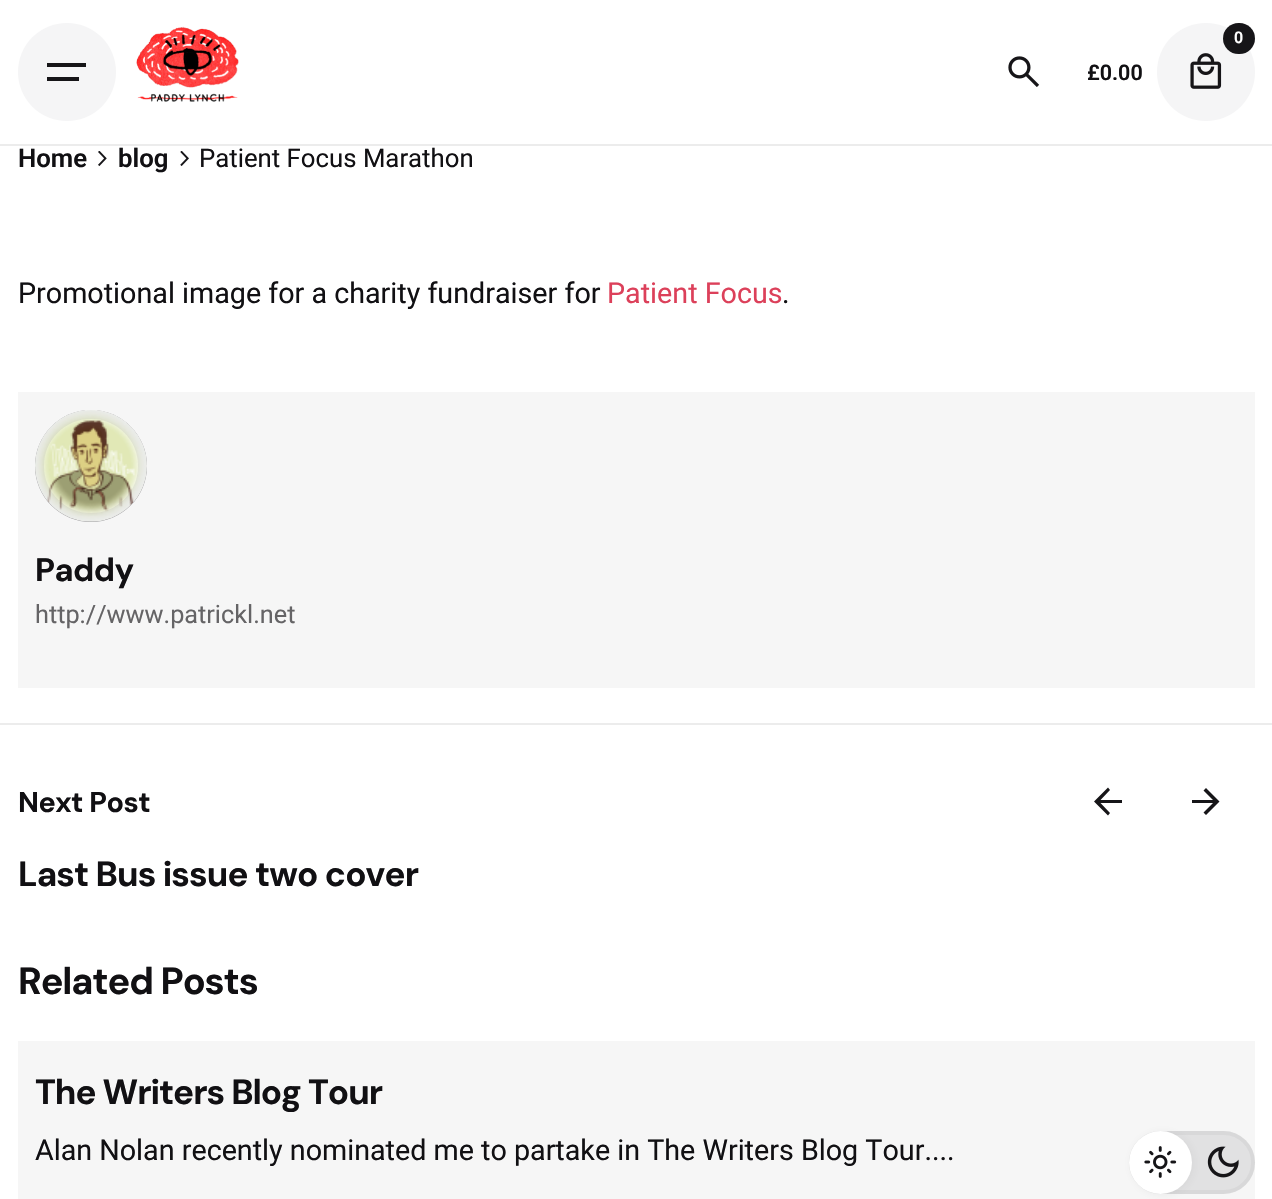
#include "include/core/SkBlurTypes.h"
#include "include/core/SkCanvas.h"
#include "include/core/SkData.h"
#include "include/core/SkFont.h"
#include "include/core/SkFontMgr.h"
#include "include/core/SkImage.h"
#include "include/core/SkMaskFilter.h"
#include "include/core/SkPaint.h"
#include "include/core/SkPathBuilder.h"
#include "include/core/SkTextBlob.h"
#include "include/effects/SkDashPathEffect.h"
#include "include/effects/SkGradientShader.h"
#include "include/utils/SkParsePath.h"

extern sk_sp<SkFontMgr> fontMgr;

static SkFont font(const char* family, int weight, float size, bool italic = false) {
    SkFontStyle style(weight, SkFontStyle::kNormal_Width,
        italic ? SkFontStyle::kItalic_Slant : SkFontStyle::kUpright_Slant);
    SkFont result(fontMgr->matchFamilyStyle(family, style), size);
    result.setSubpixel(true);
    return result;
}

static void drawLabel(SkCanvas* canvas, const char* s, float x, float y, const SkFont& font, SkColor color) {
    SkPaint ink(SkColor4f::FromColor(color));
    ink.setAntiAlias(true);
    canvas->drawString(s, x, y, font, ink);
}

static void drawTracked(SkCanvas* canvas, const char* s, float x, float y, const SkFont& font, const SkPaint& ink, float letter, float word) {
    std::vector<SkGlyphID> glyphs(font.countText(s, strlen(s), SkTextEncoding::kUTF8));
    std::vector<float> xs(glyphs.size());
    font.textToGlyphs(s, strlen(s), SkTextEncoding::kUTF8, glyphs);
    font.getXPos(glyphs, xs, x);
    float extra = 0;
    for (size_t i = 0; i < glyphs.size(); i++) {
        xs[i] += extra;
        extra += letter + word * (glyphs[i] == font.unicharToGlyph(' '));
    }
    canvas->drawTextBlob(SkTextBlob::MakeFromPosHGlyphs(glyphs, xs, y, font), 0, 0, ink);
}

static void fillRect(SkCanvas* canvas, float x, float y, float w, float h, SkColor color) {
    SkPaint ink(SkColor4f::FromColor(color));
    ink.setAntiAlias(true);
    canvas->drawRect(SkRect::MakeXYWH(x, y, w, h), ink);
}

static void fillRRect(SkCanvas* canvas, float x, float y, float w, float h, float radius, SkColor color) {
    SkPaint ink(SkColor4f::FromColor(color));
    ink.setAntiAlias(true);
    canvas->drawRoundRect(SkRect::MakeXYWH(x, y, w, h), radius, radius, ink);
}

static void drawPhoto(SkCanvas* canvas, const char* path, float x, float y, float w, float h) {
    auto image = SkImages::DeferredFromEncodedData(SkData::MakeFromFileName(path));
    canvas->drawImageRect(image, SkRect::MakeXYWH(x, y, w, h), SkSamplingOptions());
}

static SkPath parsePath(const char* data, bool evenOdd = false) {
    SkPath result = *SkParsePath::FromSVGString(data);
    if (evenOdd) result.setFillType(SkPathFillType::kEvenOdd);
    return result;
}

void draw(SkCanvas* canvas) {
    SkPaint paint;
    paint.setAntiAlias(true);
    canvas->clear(0xFFFFFFFF);
    fillRect(canvas, 0, 144, 1272, 2, 0xFFECECEC);
    paint.setColor(0xFFF5F5F6);
    canvas->drawCircle(67, 72, 49, paint);
    fillRect(canvas, 47, 63, 39, 4, 0xFF161518);
    fillRect(canvas, 47, 77, 32, 4, 0xFF161518);
    drawPhoto(canvas, "assets/img1.png", 136, 26, 103, 76);
    drawPhoto(canvas, "assets/img2.png", 1008, 56, 32, 31);
    canvas->drawCircle(1206, 72, 49, paint);
    drawPhoto(canvas, "assets/img3.png", 1190, 53, 32, 36);
    fillRRect(canvas, 1223, 23, 32, 31, 15.5f, 0xFF161518);
    SkFont font1 = font("Roboto", 600, 16);
    drawLabel(canvas, "0", 1234, 43, font1, 0xFFFFFFFF);
    SkFont font2 = font("Roboto", 600, 21.5f);
    drawLabel(canvas, "£0.00", 1087, 80, font2, 0xFF111013);
    SkFont font3 = font("Roboto", 600, 25.75f);
    drawLabel(canvas, "Home", 18, 167, font3, 0xFF111013);
    drawPhoto(canvas, "assets/img4.png", 98, 151, 9, 15);
    drawLabel(canvas, "blog", 118, 167, font3, 0xFF111013);
    drawPhoto(canvas, "assets/img5.png", 180, 151, 9, 15);
    SkFont font4 = font("Roboto", 400, 25.75f);
    drawLabel(canvas, "Patient Focus Marathon", 199, 167, font4, 0xFF111013);
    SkFont font5 = font("Roboto", 400, 28.7f);
    drawLabel(canvas, "Promotional image for a charity fundraiser for", 18, 303, font5, 0xFF111013);
    drawLabel(canvas, "Patient Focus", 607, 303, font5, 0xFFDC405A);
    drawLabel(canvas, ".", 782, 303, font5, 0xFF111013);
    fillRect(canvas, 18, 392, 1237, 296, 0xFFF6F6F6);
    paint.setColor(0xFFCACACA);
    canvas->drawCircle(91, 466, 56, paint);
    paint.setColor(0x66888889);
    canvas->drawCircle(91, 466, 56, paint);
    drawPhoto(canvas, "assets/img6.png", 35, 410, 112, 112);
    paint.setStroke(true);
    paint.setStrokeWidth(9);
    paint.setColor(0x26888889);
    canvas->drawCircle(91, 466, 51.5f, paint);
    SkFont font6 = font("DM Sans", 700, 32.5f);
    paint.setStroke(false);
    paint.setColor(0xFF111013);
    drawTracked(canvas, "Paddy", 35, 581, font6, paint, -0.5f, 0);
    SkFont font7 = font("Roboto", 400, 25.25f);
    drawLabel(canvas, "http://www.patrickl.net", 35, 623, font7, 0xFF656466);
    fillRect(canvas, 0, 723, 1272, 2, 0xFFECECEC);
    SkFont font8 = font("DM Sans", 700, 28.7f);
    drawTracked(canvas, "Next Post", 18, 812, font8, paint, -0.5f, 0);
    paint.setColor(0xFF161518);
    canvas->drawPath(parsePath("M1108 815.5L1110 813L1100.5 803H1122V800H1100.5L1110 790L1108 787.5L1094 801.5Z"), paint);
    canvas->drawPath(parsePath("M1213 803H1192V800H1213L1203.5 790.5L1206 788L1219.5 801.5L1206 815L1203.5 812.5Z"), paint);
    SkFont font9 = font("DM Sans", 700, 35);
    paint.setColor(0xFF111013);
    drawTracked(canvas, "Last Bus issue two cover", 18, 886, font9, paint, -0.9f, 0);
    SkFont font10 = font("DM Sans", 700, 37.75f);
    drawTracked(canvas, "Related Posts", 18, 994, font10, paint, -1.1f, 0);
    fillRect(canvas, 18, 1041, 1237, 158, 0xFFF6F6F6);
    drawTracked(canvas, "The Writers Blog Tour", 35, 1104, font9, paint, -1.05f, 0);
    drawLabel(canvas, "Alan Nolan recently nominated me to partake in The Writers Blog Tour....", 35, 1160, font5, 0xFF111013);
    fillRRect(canvas, 1129, 1131, 126, 63, 31.5f, 0xFFE1E1E2);
    paint.setStroke(true);
    paint.setStrokeWidth(4);
    paint.setColor(0x1A888889);
    canvas->drawRoundRect(SkRect::MakeXYWH(1131, 1133, 122, 59), 29.5f, 29.5f, paint);
    drawPhoto(canvas, "assets/img8.png", 1207, 1146, 32, 32);
    paint.setStroke(false);
    paint.setColor(0x0D111013);
    paint.setMaskFilter(SkMaskFilter::MakeBlur(kNormal_SkBlurStyle, 5));
    canvas->drawRoundRect(SkRect::MakeXYWH(1131, 1132, 63, 63), 31.5f, 31.5f, paint);
    paint.setMaskFilter(nullptr);
    paint.setColor(0xFFFFFFFF);
    canvas->drawCircle(1160.5f, 1162.5f, 31.5f, paint);
    drawPhoto(canvas, "assets/img7.png", 1144, 1146, 33, 32);
}
